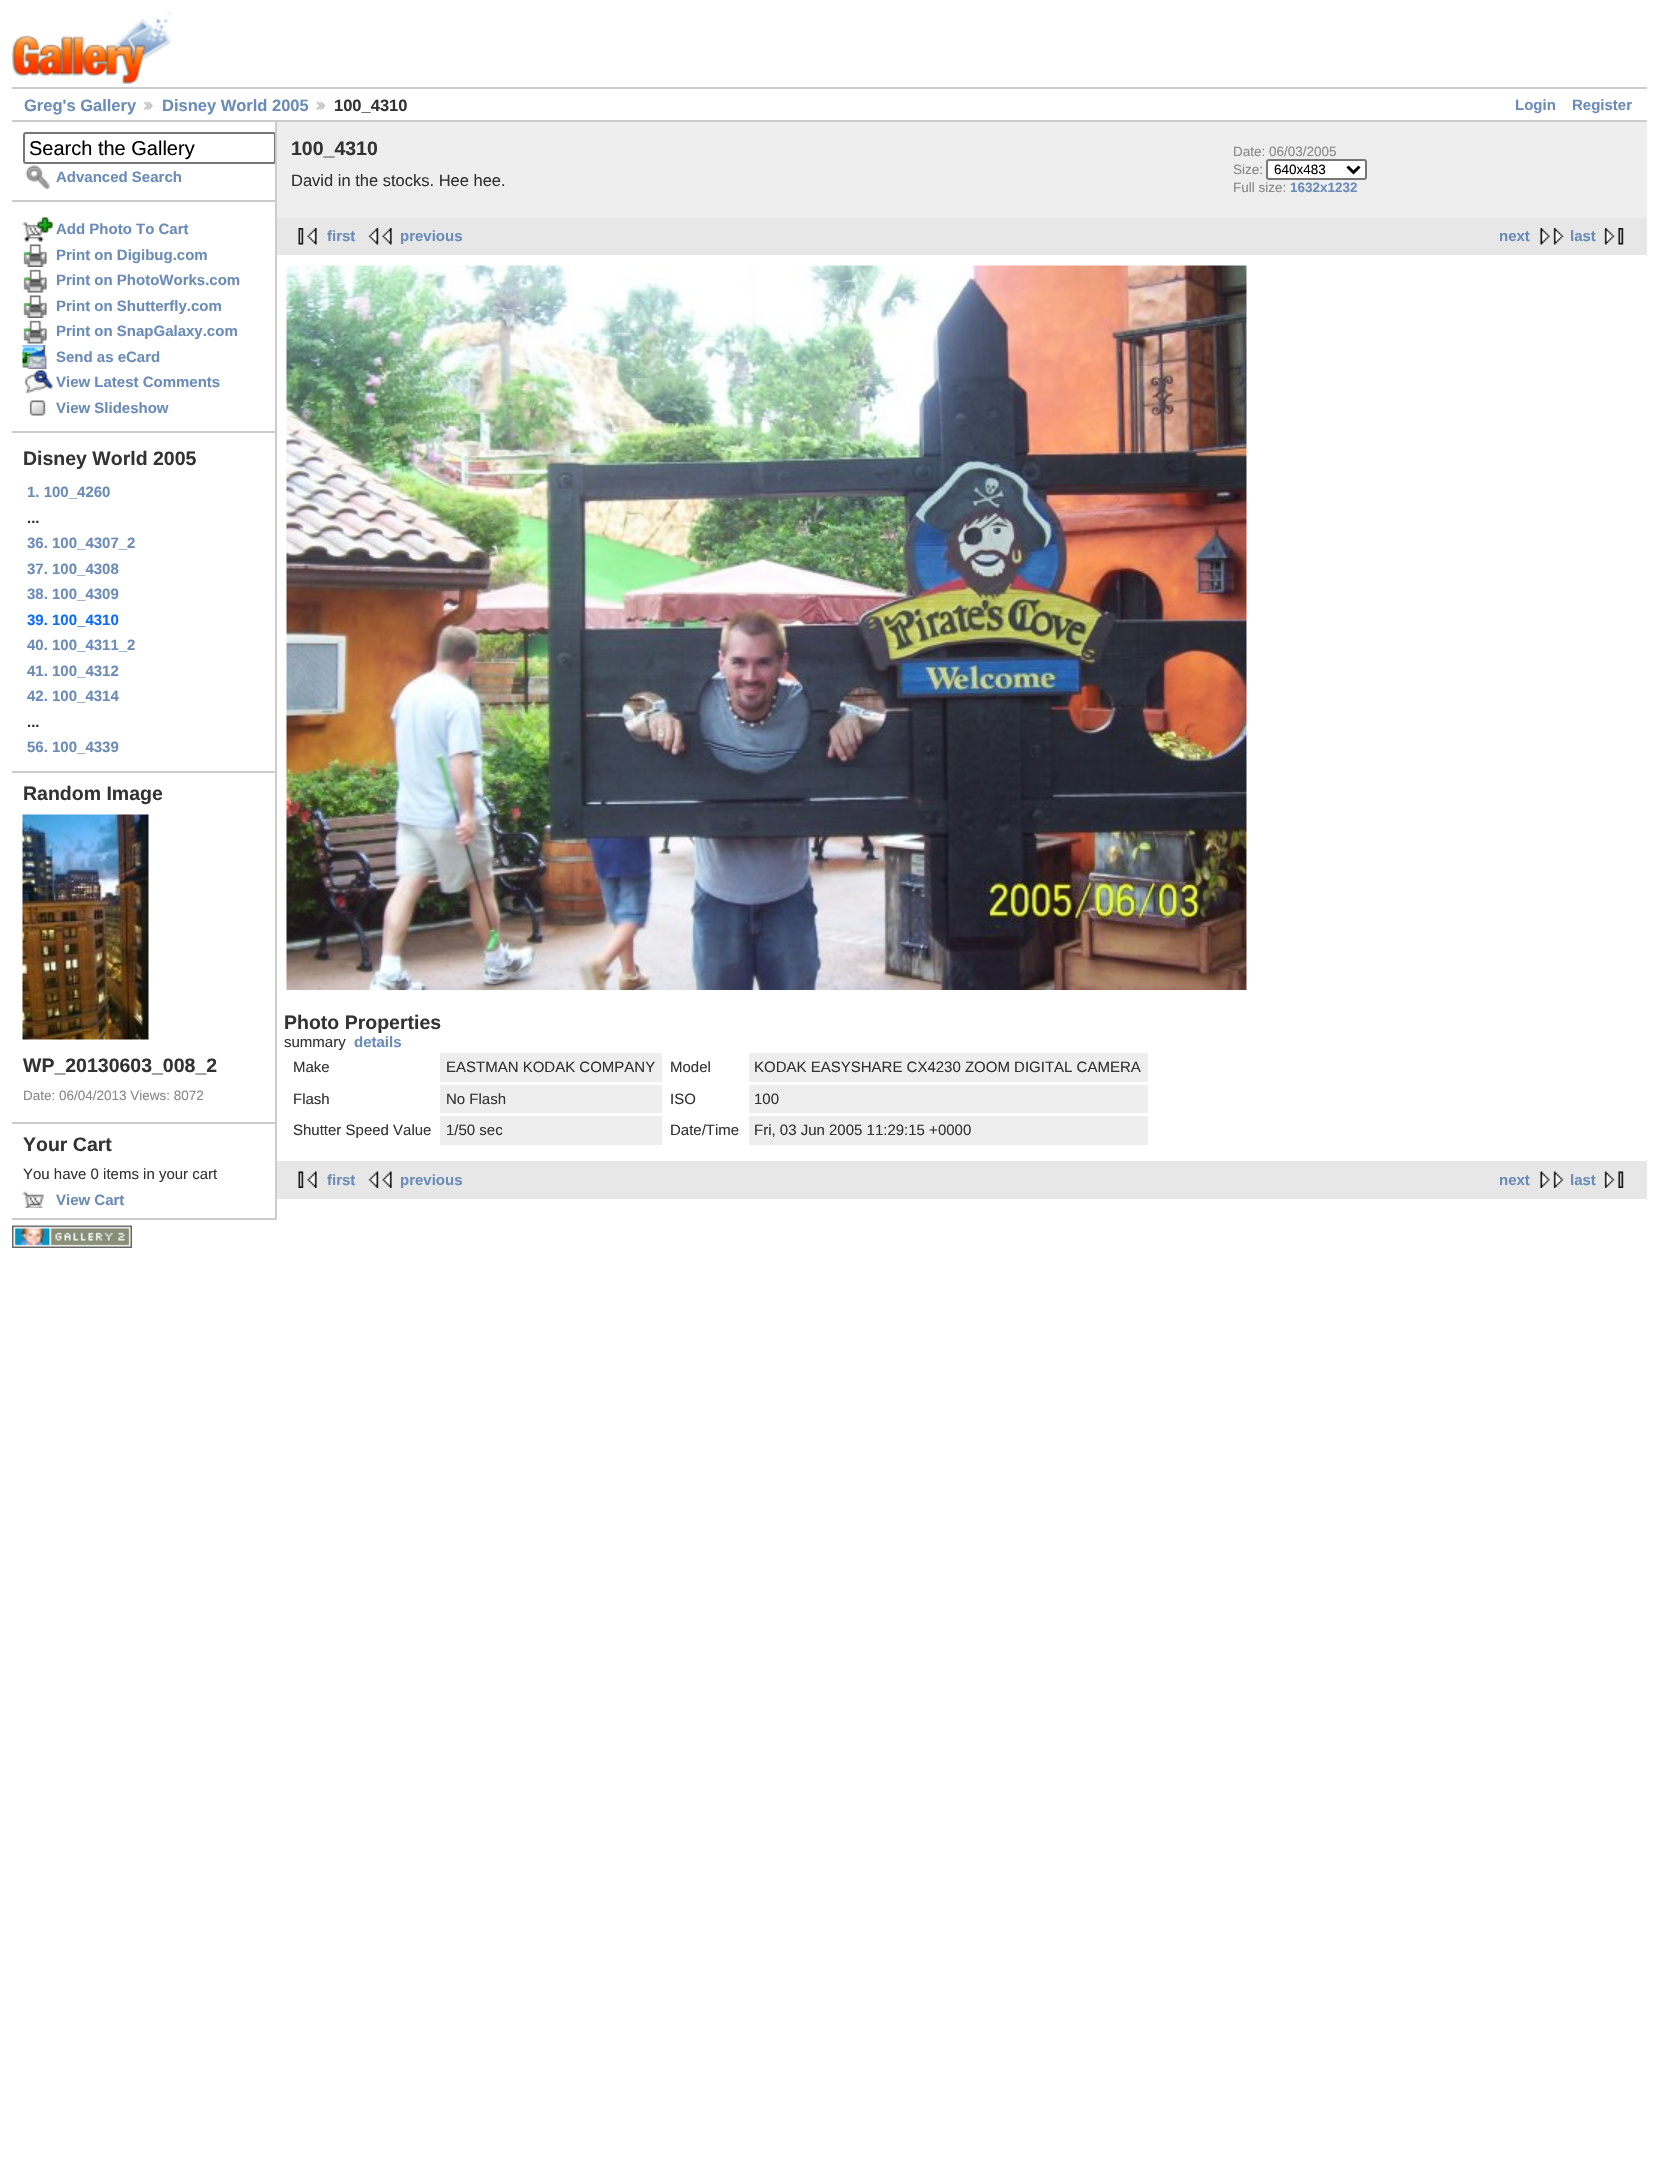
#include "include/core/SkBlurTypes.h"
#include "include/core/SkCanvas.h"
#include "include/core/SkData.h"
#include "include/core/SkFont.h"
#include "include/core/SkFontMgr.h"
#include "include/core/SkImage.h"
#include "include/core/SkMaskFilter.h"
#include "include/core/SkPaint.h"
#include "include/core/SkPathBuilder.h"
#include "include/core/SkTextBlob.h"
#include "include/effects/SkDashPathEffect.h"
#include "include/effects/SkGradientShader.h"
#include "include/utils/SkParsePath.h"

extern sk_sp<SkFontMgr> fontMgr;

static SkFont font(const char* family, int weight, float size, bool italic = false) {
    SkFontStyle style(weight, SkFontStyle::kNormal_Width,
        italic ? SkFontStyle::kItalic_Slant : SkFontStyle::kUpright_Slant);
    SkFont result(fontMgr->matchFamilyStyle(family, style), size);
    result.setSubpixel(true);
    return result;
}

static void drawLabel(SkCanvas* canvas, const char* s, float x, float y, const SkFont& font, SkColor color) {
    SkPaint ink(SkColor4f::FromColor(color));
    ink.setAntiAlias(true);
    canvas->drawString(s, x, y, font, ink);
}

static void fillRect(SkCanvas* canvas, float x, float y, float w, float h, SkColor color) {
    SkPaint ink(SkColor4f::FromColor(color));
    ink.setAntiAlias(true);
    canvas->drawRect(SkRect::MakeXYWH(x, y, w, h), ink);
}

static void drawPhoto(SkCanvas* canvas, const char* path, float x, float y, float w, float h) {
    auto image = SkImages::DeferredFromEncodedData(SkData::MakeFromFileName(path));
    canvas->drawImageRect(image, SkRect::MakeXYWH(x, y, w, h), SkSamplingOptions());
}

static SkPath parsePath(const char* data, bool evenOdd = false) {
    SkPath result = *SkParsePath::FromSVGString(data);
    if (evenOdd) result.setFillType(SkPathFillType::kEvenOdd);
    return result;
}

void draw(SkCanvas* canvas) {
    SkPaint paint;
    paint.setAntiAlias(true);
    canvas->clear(0xFFFFFFFF);
    drawPhoto(canvas, "assets/img1.png", 12, 12, 161, 72);
    fillRect(canvas, 12, 87, 1635, 2, 0xFFCCCCCC);
    fillRect(canvas, 12, 120, 1635, 2, 0xFFCCCCCC);
    SkFont font1 = font("Liberation Sans", 700, 16.5f);
    drawLabel(canvas, "Greg's Gallery", 24, 111, font1, 0xFF6B8CB7);
    drawPhoto(canvas, "assets/img2.png", 143, 101, 11, 9);
    drawLabel(canvas, "Disney World 2005", 162, 111, font1, 0xFF6B8CB7);
    drawPhoto(canvas, "assets/img3.png", 316, 101, 10, 9);
    drawLabel(canvas, "100_4310", 334, 111, font1, 0xFF333333);
    SkFont font2 = font("Liberation Sans", 700, 15);
    drawLabel(canvas, "Login", 1515, 110, font2, 0xFF6B8CB7);
    drawLabel(canvas, "Register", 1572, 110, font2, 0xFF6B8CB7);
    fillRect(canvas, 275, 122, 2, 1098, 0xFFCCCCCC);
    fillRect(canvas, 12, 200, 263, 2, 0xFFCCCCCC);
    canvas->save();
    canvas->clipRect(SkRect::MakeXYWH(12, 122, 263, 1098));
    paint.setStroke(true);
    paint.setStrokeWidth(2);
    paint.setColor(0xFF767676);
    canvas->drawRoundRect(SkRect::MakeXYWH(24, 133, 251, 30), 2, 2, paint);
    canvas->restore();
    SkFont font3 = font("Liberation Sans", 400, 20);
    drawLabel(canvas, "Search the Gallery", 29, 155, font3, 0xFF000000);
    drawPhoto(canvas, "assets/img4.png", 25, 165, 25, 24);
    drawLabel(canvas, "Advanced Search", 56, 182, font2, 0xFF6B8CB7);
    fillRect(canvas, 12, 431, 263, 2, 0xFFCCCCCC);
    drawPhoto(canvas, "assets/img5.png", 22, 217, 31, 25);
    drawLabel(canvas, "Add Photo To Cart", 56, 234, font2, 0xFF6B8CB7);
    drawPhoto(canvas, "assets/img6.png", 23, 244, 25, 23);
    drawLabel(canvas, "Print on Digibug.com", 56, 260, font2, 0xFF6B8CB7);
    drawPhoto(canvas, "assets/img7.png", 23, 269, 25, 24);
    drawLabel(canvas, "Print on PhotoWorks.com", 56, 285, font2, 0xFF6B8CB7);
    drawPhoto(canvas, "assets/img6.png", 23, 295, 25, 23);
    drawLabel(canvas, "Print on Shutterfly.com", 56, 311, font2, 0xFF6B8CB7);
    drawPhoto(canvas, "assets/img7.png", 23, 320, 25, 24);
    drawLabel(canvas, "Print on SnapGalaxy.com", 56, 336, font2, 0xFF6B8CB7);
    drawPhoto(canvas, "assets/img8.png", 22, 345, 25, 24);
    drawLabel(canvas, "Send as eCard", 56, 362, font2, 0xFF6B8CB7);
    drawPhoto(canvas, "assets/img9.png", 24, 370, 29, 24);
    drawLabel(canvas, "View Latest Comments", 56, 387, font2, 0xFF6B8CB7);
    drawPhoto(canvas, "assets/img10.png", 29, 400, 17, 16);
    drawLabel(canvas, "View Slideshow", 56, 413, font2, 0xFF6B8CB7);
    fillRect(canvas, 12, 771, 263, 2, 0xFFCCCCCC);
    SkFont font4 = font("Liberation Sans", 700, 19.5f);
    drawLabel(canvas, "Disney World 2005", 23, 465, font4, 0xFF333333);
    drawLabel(canvas, "1. 100_4260", 27, 497, font2, 0xFF6B8CB7);
    drawLabel(canvas, "...", 27, 523, font2, 0xFF333333);
    drawLabel(canvas, "36. 100_4307_2", 27, 548, font2, 0xFF6B8CB7);
    drawLabel(canvas, "37. 100_4308", 27, 574, font2, 0xFF6B8CB7);
    drawLabel(canvas, "38. 100_4309", 27, 599, font2, 0xFF6B8CB7);
    drawLabel(canvas, "39. 100_4310", 27, 625, font2, 0xFF0B6CFF);
    drawLabel(canvas, "40. 100_4311_2", 27, 650, font2, 0xFF6B8CB7);
    drawLabel(canvas, "41. 100_4312", 27, 676, font2, 0xFF6B8CB7);
    drawLabel(canvas, "42. 100_4314", 27, 701, font2, 0xFF6B8CB7);
    drawLabel(canvas, "...", 27, 727, font2, 0xFF333333);
    drawLabel(canvas, "56. 100_4339", 27, 752, font2, 0xFF6B8CB7);
    fillRect(canvas, 12, 1122, 263, 2, 0xFFCCCCCC);
    drawLabel(canvas, "Random Image", 23, 800, font4, 0xFF333333);
    drawPhoto(canvas, "assets/img11.png", 22, 814, 127, 226);
    drawLabel(canvas, "WP_20130603_008_2", 23, 1072, font4, 0xFF333333);
    SkFont font5 = font("Liberation Sans", 400, 13.5f);
    drawLabel(canvas, "Date: 06/04/2013 Views: 8072", 23, 1100, font5, 0xFF888888);
    fillRect(canvas, 12, 1218, 263, 2, 0xFFCCCCCC);
    drawLabel(canvas, "Your Cart", 23, 1151, font4, 0xFF333333);
    SkFont font6 = font("Liberation Sans", 400, 15);
    drawLabel(canvas, "You have 0 items in your cart", 23, 1179, font6, 0xFF333333);
    drawPhoto(canvas, "assets/img12.png", 22, 1191, 22, 17);
    drawLabel(canvas, "View Cart", 56, 1205, font2, 0xFF6B8CB7);
    fillRect(canvas, 277, 122, 1370, 96, 0xFFEEEEEE);
    drawLabel(canvas, "100_4310", 291, 155, font4, 0xFF333333);
    SkFont font7 = font("Liberation Sans", 400, 16.5f);
    drawLabel(canvas, "David in the stocks. Hee hee.", 291, 186, font7, 0xFF333333);
    drawLabel(canvas, "Date: 06/03/2005", 1233, 156, font5, 0xFF888888);
    drawLabel(canvas, "Size:", 1233, 174, font5, 0xFF888888);
    paint.setStroke(false);
    paint.setColor(0xFFFFFFFF);
    canvas->drawRoundRect(SkRect::MakeXYWH(1267, 160, 99, 19), 2, 2, paint);
    paint.setStroke(true);
    paint.setColor(0xFF767676);
    canvas->drawRoundRect(SkRect::MakeXYWH(1267, 160, 99, 19), 2, 2, paint);
    paint.setStrokeWidth(3);
    paint.setColor(0xFF000000);
    canvas->drawPath(parsePath("M1347.5 166.5L1353.5 172.5L1359.5 166.5"), paint);
    drawLabel(canvas, "640x483", 1274, 174, font5, 0xFF000000);
    drawLabel(canvas, "Full size:", 1233, 192, font5, 0xFF888888);
    SkFont font8 = font("Liberation Sans", 700, 13.5f);
    drawLabel(canvas, "1632x1232", 1290, 192, font8, 0xFF6B8CB7);
    fillRect(canvas, 277, 218, 1370, 37, 0xFFE7E7E7);
    drawPhoto(canvas, "assets/img13.png", 298, 228, 19, 17);
    drawLabel(canvas, "first", 327, 241, font2, 0xFF6B8CB7);
    drawPhoto(canvas, "assets/img14.png", 368, 228, 24, 17);
    drawLabel(canvas, "previous", 400, 241, font2, 0xFF6B8CB7);
    drawLabel(canvas, "next", 1499, 241, font2, 0xFF6B8CB7);
    drawPhoto(canvas, "assets/img15.png", 1540, 228, 24, 17);
    drawLabel(canvas, "last", 1570, 241, font2, 0xFF6B8CB7);
    drawPhoto(canvas, "assets/img16.png", 1604, 228, 20, 17);
    drawPhoto(canvas, "assets/img17.png", 286, 265, 961, 725);
    drawLabel(canvas, "Photo Properties", 284, 1029, font4, 0xFF333333);
    drawLabel(canvas, "summary", 284, 1047, font6, 0xFF333333);
    drawLabel(canvas, "details", 354, 1047, font2, 0xFF6B8CB7);
    drawLabel(canvas, "Make", 293, 1072, font6, 0xFF333333);
    fillRect(canvas, 440, 1053, 222, 29, 0xFFEEEEEE);
    drawLabel(canvas, "EASTMAN KODAK COMPANY", 446, 1072, font6, 0xFF333333);
    drawLabel(canvas, "Model", 670, 1072, font6, 0xFF333333);
    fillRect(canvas, 749, 1053, 399, 29, 0xFFEEEEEE);
    drawLabel(canvas, "KODAK EASYSHARE CX4230 ZOOM DIGITAL CAMERA", 754, 1072, font6, 0xFF333333);
    drawLabel(canvas, "Flash", 293, 1104, font6, 0xFF333333);
    fillRect(canvas, 440, 1085, 222, 28, 0xFFEEEEEE);
    drawLabel(canvas, "No Flash", 446, 1104, font6, 0xFF333333);
    drawLabel(canvas, "ISO", 670, 1104, font6, 0xFF333333);
    fillRect(canvas, 749, 1085, 399, 28, 0xFFEEEEEE);
    drawLabel(canvas, "100", 754, 1104, font6, 0xFF333333);
    drawLabel(canvas, "Shutter Speed Value", 293, 1135, font6, 0xFF333333);
    fillRect(canvas, 440, 1116, 222, 29, 0xFFEEEEEE);
    drawLabel(canvas, "1/50 sec", 446, 1135, font6, 0xFF333333);
    drawLabel(canvas, "Date/Time", 670, 1135, font6, 0xFF333333);
    fillRect(canvas, 749, 1116, 399, 29, 0xFFEEEEEE);
    drawLabel(canvas, "Fri, 03 Jun 2005 11:29:15 +0000", 754, 1135, font6, 0xFF333333);
    fillRect(canvas, 277, 1161, 1370, 38, 0xFFE7E7E7);
    drawPhoto(canvas, "assets/img18.png", 298, 1171, 19, 17);
    drawLabel(canvas, "first", 327, 1185, font2, 0xFF6B8CB7);
    drawPhoto(canvas, "assets/img19.png", 368, 1171, 24, 17);
    drawLabel(canvas, "previous", 400, 1185, font2, 0xFF6B8CB7);
    drawLabel(canvas, "next", 1499, 1185, font2, 0xFF6B8CB7);
    drawPhoto(canvas, "assets/img20.png", 1540, 1171, 24, 17);
    drawLabel(canvas, "last", 1570, 1185, font2, 0xFF6B8CB7);
    drawPhoto(canvas, "assets/img21.png", 1604, 1171, 20, 17);
    drawPhoto(canvas, "assets/img22.png", 12, 1225, 120, 23);
}
